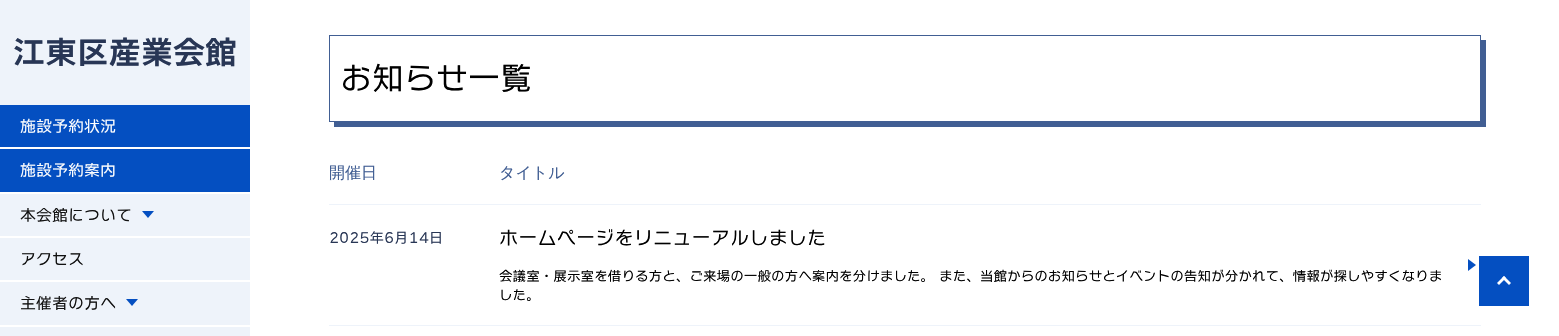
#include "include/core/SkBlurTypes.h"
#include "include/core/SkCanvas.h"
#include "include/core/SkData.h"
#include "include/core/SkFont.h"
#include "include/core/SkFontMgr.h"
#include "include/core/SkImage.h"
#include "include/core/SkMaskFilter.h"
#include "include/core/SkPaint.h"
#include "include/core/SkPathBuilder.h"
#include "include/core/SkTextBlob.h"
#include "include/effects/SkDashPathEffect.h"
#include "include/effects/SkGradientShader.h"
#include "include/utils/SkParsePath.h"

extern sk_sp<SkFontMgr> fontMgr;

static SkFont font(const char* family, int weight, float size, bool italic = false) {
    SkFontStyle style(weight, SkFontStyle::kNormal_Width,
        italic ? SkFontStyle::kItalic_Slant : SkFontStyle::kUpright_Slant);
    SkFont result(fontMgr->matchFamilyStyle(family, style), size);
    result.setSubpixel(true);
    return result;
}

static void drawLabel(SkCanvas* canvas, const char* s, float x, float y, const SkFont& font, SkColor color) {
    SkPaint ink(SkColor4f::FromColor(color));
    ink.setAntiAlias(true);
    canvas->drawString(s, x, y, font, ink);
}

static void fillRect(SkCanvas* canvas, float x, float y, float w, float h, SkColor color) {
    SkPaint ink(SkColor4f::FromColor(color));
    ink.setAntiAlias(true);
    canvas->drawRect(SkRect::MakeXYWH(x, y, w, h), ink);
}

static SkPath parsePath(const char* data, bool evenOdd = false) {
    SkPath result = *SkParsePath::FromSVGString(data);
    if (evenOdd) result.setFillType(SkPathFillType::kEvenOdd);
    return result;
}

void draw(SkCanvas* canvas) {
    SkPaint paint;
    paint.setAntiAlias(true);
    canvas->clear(0xFFFFFFFF);
    fillRect(canvas, 0, 0, 250, 336, 0xFFEEF3FA);
    SkFont font1 = font("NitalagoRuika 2", 100, 32);
    drawLabel(canvas, "江東区産業会館", 13, 64, font1, 0xFF283655);
    fillRect(canvas, 0, 105, 250, 42, 0xFF044FC1);
    fillRect(canvas, 0, 147, 250, 2, 0xFFFFFFFF);
    SkFont font2 = font("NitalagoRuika", 100, 16);
    drawLabel(canvas, "施設予約状況", 20, 132, font2, 0xFFFFFFFF);
    fillRect(canvas, 0, 149, 250, 43, 0xFF044FC1);
    fillRect(canvas, 0, 192, 250, 2, 0xFFFFFFFF);
    drawLabel(canvas, "施設予約案内", 20, 176, font2, 0xFFFFFFFF);
    fillRect(canvas, 0, 236, 250, 2, 0xFFFFFFFF);
    drawLabel(canvas, "本会館について", 20, 221, font2, 0xFF111111);
    paint.setColor(0xFF044FC1);
    canvas->drawPath(parsePath("M142 211H154L148 218Z"), paint);
    fillRect(canvas, 0, 280, 250, 2, 0xFFFFFFFF);
    drawLabel(canvas, "アクセス", 20, 265, font2, 0xFF111111);
    fillRect(canvas, 0, 325, 250, 2, 0xFFFFFFFF);
    drawLabel(canvas, "主催者の方へ", 20, 309, font2, 0xFF111111);
    canvas->drawPath(parsePath("M126 299H138L132 306Z"), paint);
    paint.setColor(0xFF415E93);
    canvas->drawPath(parsePath("M334 122V127H1486V40H1481V122Z"), paint);
    paint.setStroke(true);
    paint.setStrokeWidth(1);
    canvas->drawRect(SkRect::MakeXYWH(329.5f, 35.5f, 1151, 86), paint);
    SkFont font3 = font("NitalagoRuika", 100, 32);
    drawLabel(canvas, "お知らせ一覧", 340, 90, font3, 0xFF000000);
    fillRect(canvas, 329, 204, 1152, 1, 0xFFEEF3FA);
    SkFont font4 = font("WenQuanYi Zen Hei", 500, 16);
    drawLabel(canvas, "開催日", 329, 178, font4, 0xFF415E93);
    drawLabel(canvas, "タイトル", 499, 178, font4, 0xFF415E93);
    fillRect(canvas, 329, 325, 1152, 1, 0xFFEEF3FA);
    SkFont font5 = font("NitalagoRuika", 100, 14.5f);
    drawLabel(canvas, "2025年6月14日", 329, 243, font5, 0xFF283655);
    SkFont font6 = font("NitalagoRuika", 100, 19.25f);
    drawLabel(canvas, "ホームページをリニューアルしました", 499, 245, font6, 0xFF000000);
    paint.setStroke(false);
    paint.setColor(0xFF044FC1);
    canvas->drawPath(parsePath("M1468 271V259L1476 265Z"), paint);
    SkFont font7 = font("NitalagoRuika", 100, 13.6f);
    drawLabel(canvas, "会議室・展示室を借りる方と、ご来場の一般の方へ案内を分けました。 また、当館からのお知らせとイベントの告知が分かれて、情報が探しやすくなりま", 499, 281, font7, 0xFF000000);
    drawLabel(canvas, "した。", 499, 300, font7, 0xFF000000);
    fillRect(canvas, 1479, 256, 50, 50, 0xFF044FC1);
    paint.setColor(0xFFFFFFFF);
    canvas->drawPath(parsePath("M1497 283L1504 276L1506 278L1499 285Z"), paint);
    canvas->drawPath(parsePath("M1502 278L1504 276L1511 283L1509 285Z"), paint);
}
